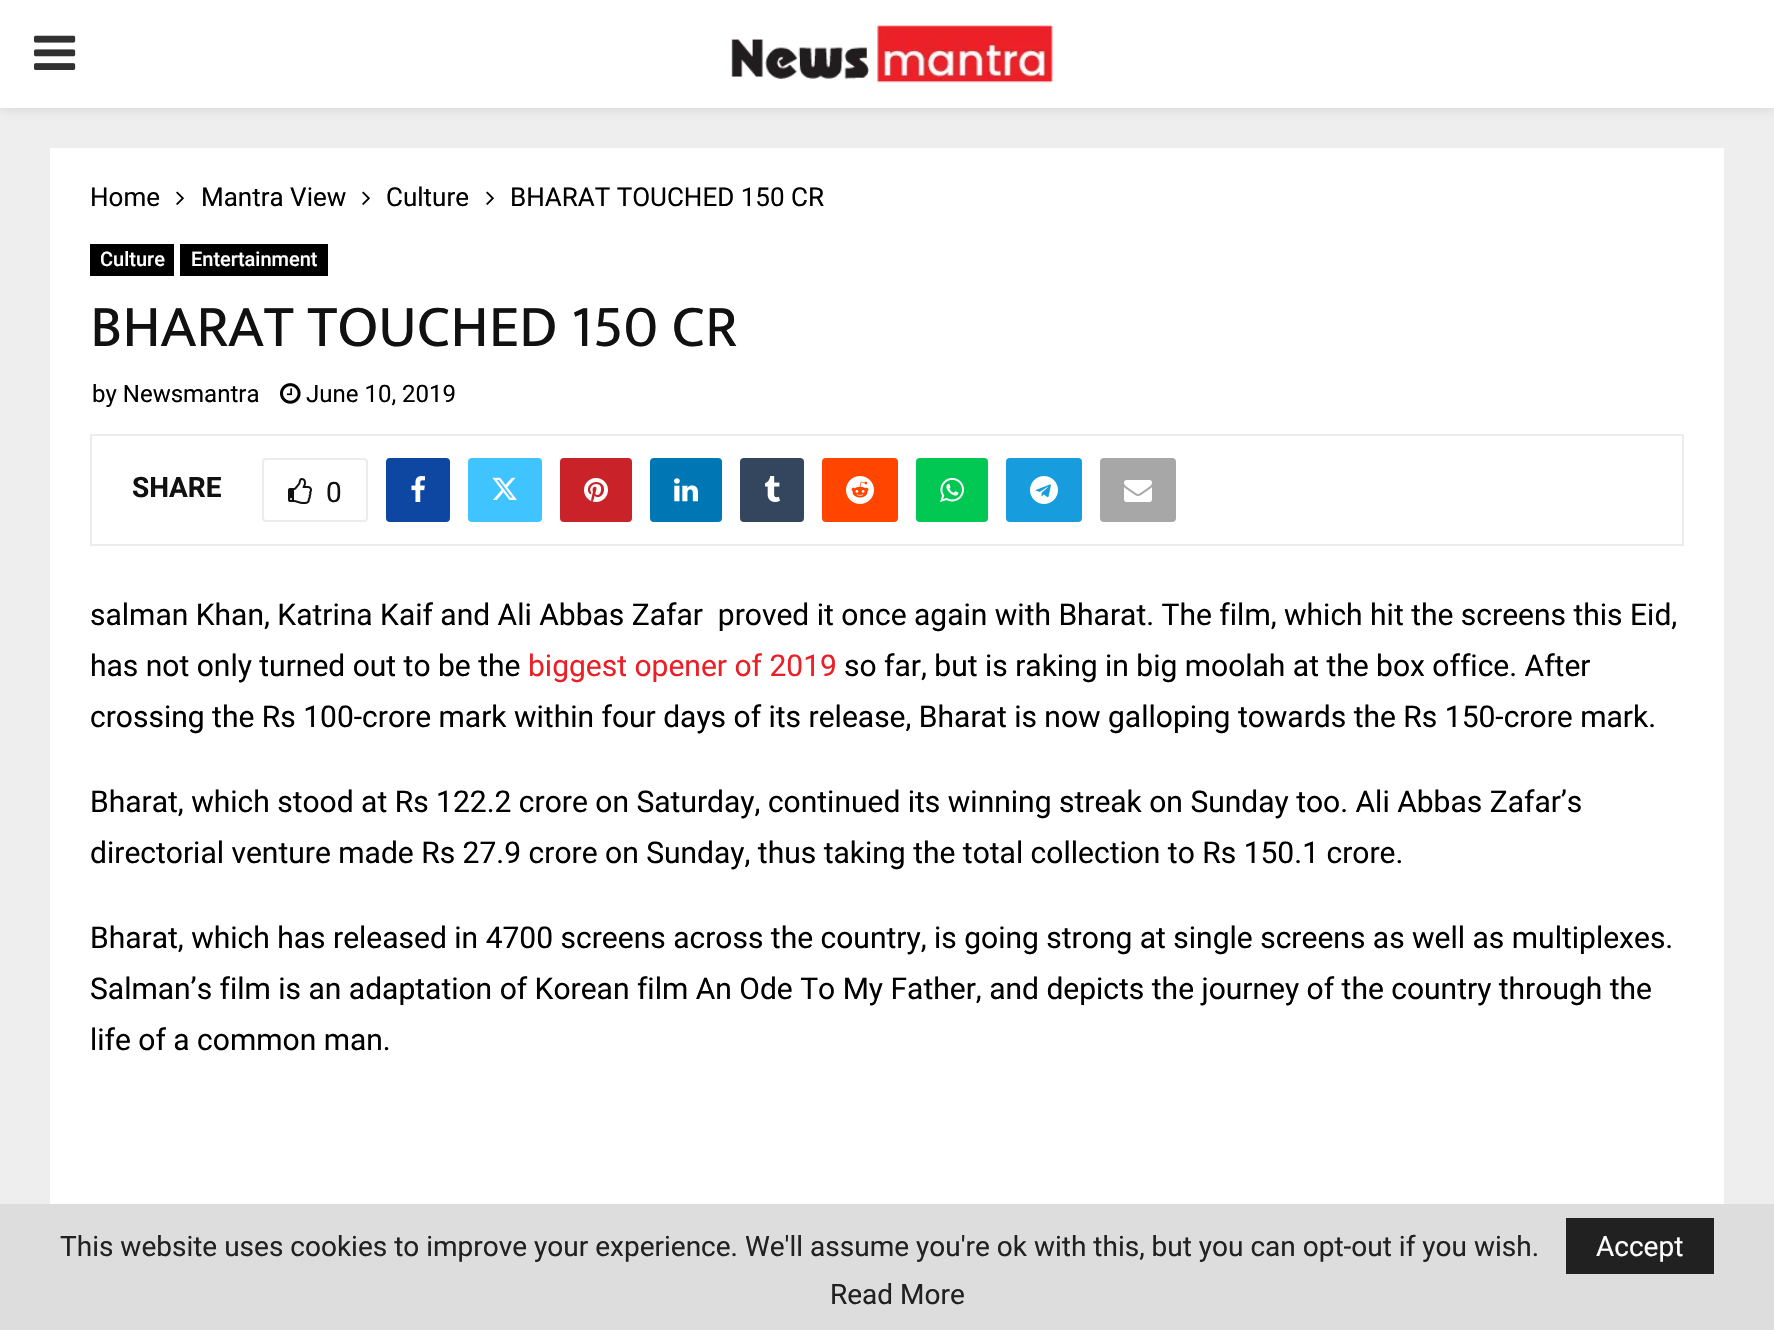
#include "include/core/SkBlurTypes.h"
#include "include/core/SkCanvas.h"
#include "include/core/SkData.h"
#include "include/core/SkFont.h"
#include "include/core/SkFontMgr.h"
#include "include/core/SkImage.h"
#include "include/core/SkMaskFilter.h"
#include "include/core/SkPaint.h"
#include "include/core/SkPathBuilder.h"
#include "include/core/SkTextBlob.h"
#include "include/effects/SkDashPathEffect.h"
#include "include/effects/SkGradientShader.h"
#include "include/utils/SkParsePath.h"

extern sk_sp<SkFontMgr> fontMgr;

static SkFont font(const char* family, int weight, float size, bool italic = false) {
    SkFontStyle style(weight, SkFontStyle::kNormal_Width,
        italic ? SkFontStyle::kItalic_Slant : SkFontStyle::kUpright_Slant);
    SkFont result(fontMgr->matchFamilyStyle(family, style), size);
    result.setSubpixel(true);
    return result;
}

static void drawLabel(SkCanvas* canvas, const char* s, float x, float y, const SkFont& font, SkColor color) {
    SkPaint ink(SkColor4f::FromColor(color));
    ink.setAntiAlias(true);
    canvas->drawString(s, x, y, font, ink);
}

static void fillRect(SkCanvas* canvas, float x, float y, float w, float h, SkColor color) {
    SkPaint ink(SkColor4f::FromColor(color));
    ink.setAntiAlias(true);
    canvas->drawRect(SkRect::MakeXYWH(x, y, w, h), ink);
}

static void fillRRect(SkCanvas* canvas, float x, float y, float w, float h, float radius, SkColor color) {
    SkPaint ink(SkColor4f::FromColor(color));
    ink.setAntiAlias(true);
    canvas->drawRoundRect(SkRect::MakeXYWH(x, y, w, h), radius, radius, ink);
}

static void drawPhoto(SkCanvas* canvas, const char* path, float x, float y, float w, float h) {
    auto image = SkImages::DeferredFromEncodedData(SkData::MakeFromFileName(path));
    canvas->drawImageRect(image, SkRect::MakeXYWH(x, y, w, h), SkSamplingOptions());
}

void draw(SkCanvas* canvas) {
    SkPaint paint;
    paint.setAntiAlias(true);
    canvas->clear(0xFFEEEEEE);
    paint.setColor(0x75BEBEBE);
    paint.setMaskFilter(SkMaskFilter::MakeBlur(kNormal_SkBlurStyle, 5));
    canvas->drawRect(SkRect::MakeXYWH(0, 2, 1774, 108), paint);
    paint.setMaskFilter(nullptr);
    fillRect(canvas, 0, 0, 1774, 108, 0xFFFFFFFF);
    drawPhoto(canvas, "assets/img1.png", 34, 35, 42, 35);
    drawPhoto(canvas, "assets/img2.png", 731, 25, 322, 58);
    fillRect(canvas, 50, 148, 1674, 1056, 0xFFFFFFFF);
    SkFont font1 = font("Roboto", 400, 26);
    drawLabel(canvas, "Home", 90, 206, font1, 0xFF000000);
    drawPhoto(canvas, "assets/img3.png", 176, 191, 8, 14);
    drawLabel(canvas, "Mantra View", 201, 206, font1, 0xFF000000);
    drawPhoto(canvas, "assets/img3.png", 362, 191, 8, 14);
    drawLabel(canvas, "Culture", 386, 206, font1, 0xFF000000);
    drawPhoto(canvas, "assets/img3.png", 486, 191, 8, 14);
    drawLabel(canvas, "BHARAT TOUCHED 150 CR", 510, 206, font1, 0xFF000000);
    fillRect(canvas, 90, 244, 84, 32, 0xFF000000);
    SkFont font2 = font("Roboto", 500, 20);
    drawLabel(canvas, "Culture", 100, 266, font2, 0xFFFFFFFF);
    fillRect(canvas, 180, 244, 148, 32, 0xFF000000);
    drawLabel(canvas, "Entertainment", 191, 266, font2, 0xFFFFFFFF);
    SkFont font3 = font("Mukta Vaani", 400, 60);
    drawLabel(canvas, "BHARAT TOUCHED 150 CR", 90, 346, font3, 0xFF111111);
    SkFont font4 = font("Roboto", 400, 24);
    drawLabel(canvas, "by Newsmantra", 92, 402, font4, 0xFF000000);
    drawPhoto(canvas, "assets/img4.png", 280, 383, 21, 21);
    drawLabel(canvas, "June 10, 2019", 306, 402, font4, 0xFF000000);
    paint.setStroke(true);
    paint.setStrokeWidth(2);
    paint.setColor(0xFFECECEC);
    canvas->drawRect(SkRect::MakeXYWH(91, 435, 1592, 110), paint);
    SkFont font5 = font("Roboto", 700, 28);
    drawLabel(canvas, "SHARE", 132, 497, font5, 0xFF111111);
    canvas->drawRoundRect(SkRect::MakeXYWH(263, 459, 104, 62), 3, 3, paint);
    drawPhoto(canvas, "assets/img5.png", 288, 478, 24, 26);
    SkFont font6 = font("Roboto", 400, 28);
    drawLabel(canvas, "0", 326, 502, font6, 0xFF111111);
    fillRRect(canvas, 386, 458, 64, 64, 4, 0xFF0D47A1);
    drawPhoto(canvas, "assets/img6.png", 411, 476, 14, 26);
    fillRRect(canvas, 468, 458, 74, 64, 4, 0xFF40C4FF);
    drawPhoto(canvas, "assets/img7.png", 492, 477, 25, 23);
    fillRRect(canvas, 560, 458, 72, 64, 4, 0xFFC92228);
    drawPhoto(canvas, "assets/img8.png", 584, 478, 24, 24);
    fillRRect(canvas, 650, 458, 72, 64, 4, 0xFF0077B5);
    drawPhoto(canvas, "assets/img9.png", 674, 478, 24, 24);
    fillRRect(canvas, 740, 458, 64, 64, 4, 0xFF34465D);
    drawPhoto(canvas, "assets/img10.png", 765, 476, 15, 26);
    fillRRect(canvas, 822, 458, 76, 64, 4, 0xFFFF4500);
    drawPhoto(canvas, "assets/img11.png", 846, 476, 28, 28);
    fillRRect(canvas, 916, 458, 72, 64, 4, 0xFF00C853);
    drawPhoto(canvas, "assets/img12.png", 940, 477, 24, 25);
    fillRRect(canvas, 1006, 458, 76, 64, 4, 0xFF179CDE);
    drawPhoto(canvas, "assets/img13.png", 1030, 476, 28, 28);
    fillRRect(canvas, 1100, 458, 76, 64, 4, 0xFFA7A7A7);
    drawPhoto(canvas, "assets/img14.png", 1124, 480, 28, 22);
    SkFont font7 = font("Roboto", 400, 30);
    drawLabel(canvas, "salman Khan, Katrina Kaif and Ali Abbas Zafar  proved it once again with Bharat. The film, which hit the screens this Eid,", 90, 625, font7, 0xFF000000);
    drawLabel(canvas, "has not only turned out to be the", 90, 676, font7, 0xFF000000);
    drawLabel(canvas, "biggest opener of 2019", 528, 676, font7, 0xFFEC1E26);
    drawLabel(canvas, "so far, but is raking in big moolah at the box office. After", 844, 676, font7, 0xFF000000);
    drawLabel(canvas, "crossing the Rs 100-crore mark within four days of its release, Bharat is now galloping towards the Rs 150-crore mark.", 90, 727, font7, 0xFF000000);
    drawLabel(canvas, "Bharat, which stood at Rs 122.2 crore on Saturday, continued its winning streak on Sunday too. Ali Abbas Zafar’s", 90, 812, font7, 0xFF000000);
    drawLabel(canvas, "directorial venture made Rs 27.9 crore on Sunday, thus taking the total collection to Rs 150.1 crore.", 90, 863, font7, 0xFF000000);
    drawLabel(canvas, "Bharat, which has released in 4700 screens across the country, is going strong at single screens as well as multiplexes.", 90, 948, font7, 0xFF000000);
    drawLabel(canvas, "Salman’s film is an adaptation of Korean film An Ode To My Father, and depicts the journey of the country through the", 90, 999, font7, 0xFF000000);
    drawLabel(canvas, "life of a common man.", 90, 1050, font7, 0xFF000000);
    fillRect(canvas, 0, 1204, 1774, 126, 0xFFDDDDDD);
    drawLabel(canvas, "This website uses cookies to improve your experience. We'll assume you're ok with this, but you can opt-out if you wish.", 60, 1256, font6, 0xFF212121);
    fillRect(canvas, 1566, 1218, 148, 56, 0xFF212121);
    drawLabel(canvas, "Accept", 1596, 1256, font6, 0xFFFFFFFF);
    drawLabel(canvas, "Read More", 830, 1304, font6, 0xFF212121);
}
